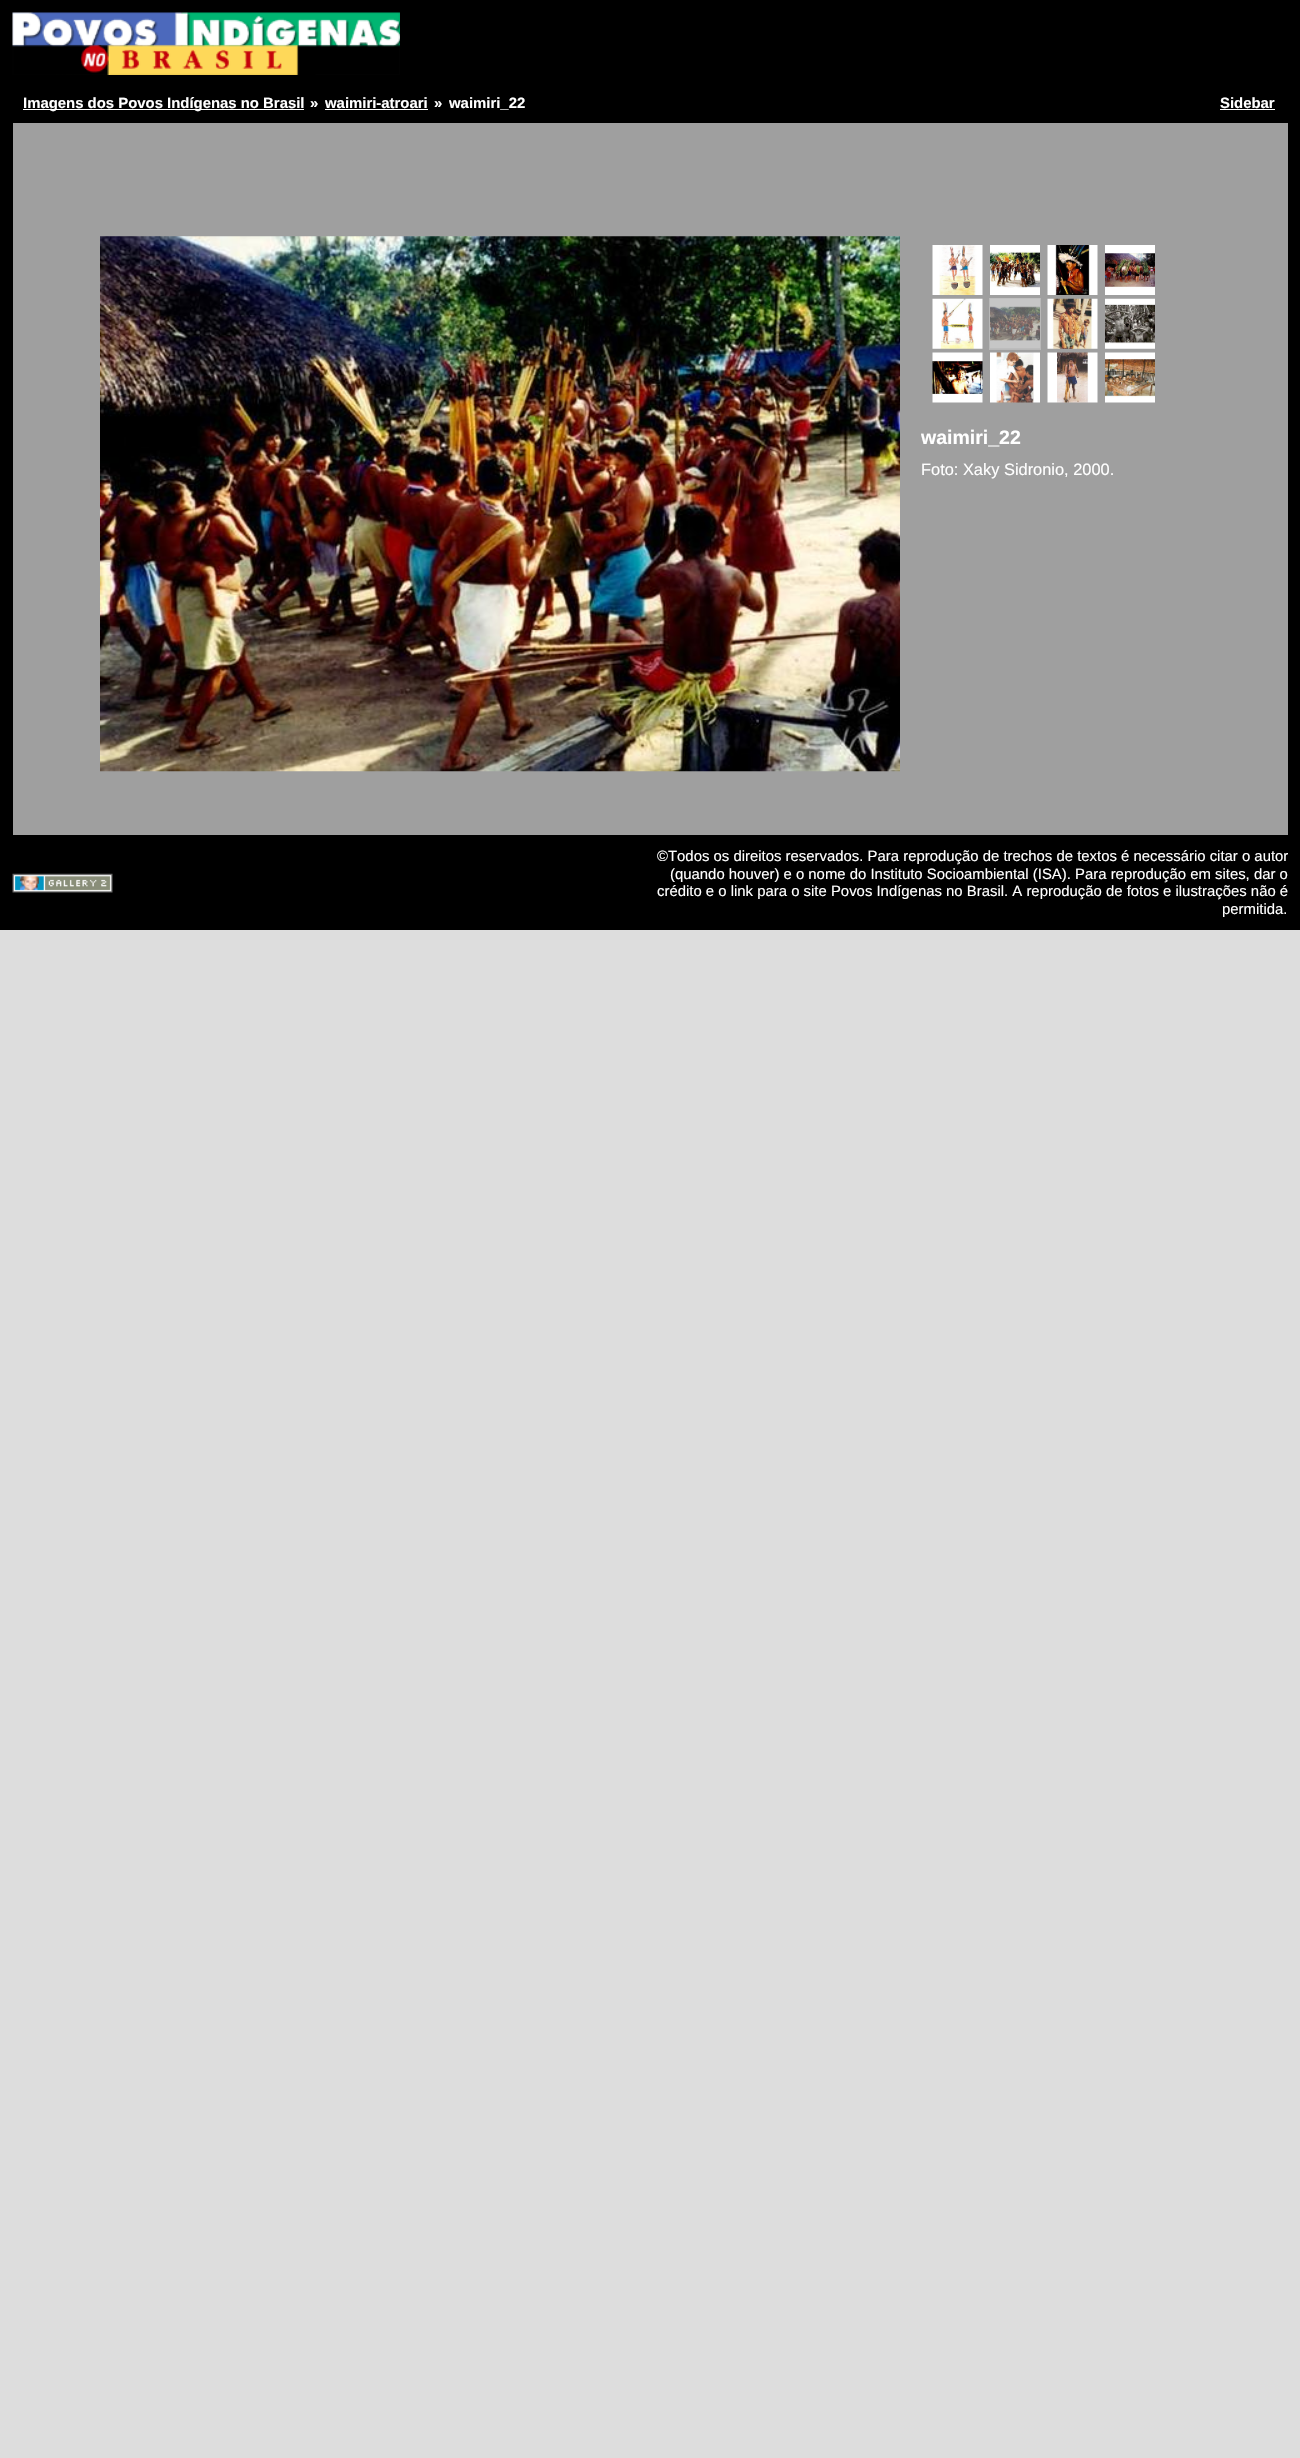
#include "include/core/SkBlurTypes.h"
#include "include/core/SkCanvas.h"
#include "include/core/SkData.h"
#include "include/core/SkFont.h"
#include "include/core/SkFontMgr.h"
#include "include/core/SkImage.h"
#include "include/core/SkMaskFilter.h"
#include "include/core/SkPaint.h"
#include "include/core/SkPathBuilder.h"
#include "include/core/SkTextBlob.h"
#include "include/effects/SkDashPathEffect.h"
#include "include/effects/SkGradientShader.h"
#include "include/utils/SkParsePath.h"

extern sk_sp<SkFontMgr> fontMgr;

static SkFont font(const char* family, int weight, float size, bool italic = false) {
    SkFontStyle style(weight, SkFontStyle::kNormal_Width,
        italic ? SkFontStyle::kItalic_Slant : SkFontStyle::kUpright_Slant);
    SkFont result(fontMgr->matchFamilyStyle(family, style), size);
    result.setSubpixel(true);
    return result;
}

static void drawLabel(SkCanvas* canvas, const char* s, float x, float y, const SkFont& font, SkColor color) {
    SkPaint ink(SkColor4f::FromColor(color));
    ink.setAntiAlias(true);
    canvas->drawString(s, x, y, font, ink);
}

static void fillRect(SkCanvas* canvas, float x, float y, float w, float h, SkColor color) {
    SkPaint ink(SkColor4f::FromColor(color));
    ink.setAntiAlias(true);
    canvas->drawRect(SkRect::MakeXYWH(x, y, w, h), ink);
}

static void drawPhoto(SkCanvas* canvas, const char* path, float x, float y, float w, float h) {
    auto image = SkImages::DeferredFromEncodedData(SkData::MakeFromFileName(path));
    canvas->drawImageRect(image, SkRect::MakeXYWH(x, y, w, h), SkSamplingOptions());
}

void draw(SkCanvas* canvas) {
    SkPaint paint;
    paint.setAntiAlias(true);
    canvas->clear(0xFFDDDDDD);
    fillRect(canvas, 0, 0, 1300, 930, 0xFF000000);
    drawPhoto(canvas, "assets/img1.png", 12, 12, 388, 63);
    fillRect(canvas, 23, 109, 281, 1, 0xFFFFFFFF);
    SkFont font1 = font("Liberation Sans", 700, 14.9f);
    drawLabel(canvas, "Imagens dos Povos Indígenas no Brasil", 23, 108, font1, 0xFFFFFFFF);
    drawLabel(canvas, "»", 310, 108, font1, 0xFFFFFFFF);
    drawLabel(canvas, "waimiri-atroari", 325, 108, font1, 0xFFFFFFFF);
    fillRect(canvas, 325, 109, 103, 1, 0xFFFFFFFF);
    drawLabel(canvas, "»", 434, 108, font1, 0xFFFFFFFF);
    drawLabel(canvas, "waimiri_22", 449, 108, font1, 0xFFFFFFFF);
    drawLabel(canvas, "Sidebar", 1220, 108, font1, 0xFFFFFFFF);
    fillRect(canvas, 1220, 109, 55, 1, 0xFFFFFFFF);
    fillRect(canvas, 13, 123, 1275, 712, 0xFF9F9F9F);
    drawPhoto(canvas, "assets/img2.png", 100, 236, 800, 536);
    drawPhoto(canvas, "assets/img3.png", 932, 245, 51, 50);
    drawPhoto(canvas, "assets/img4.png", 990, 245, 50, 50);
    drawPhoto(canvas, "assets/img5.png", 1047, 245, 51, 50);
    drawPhoto(canvas, "assets/img6.png", 1105, 245, 50, 50);
    drawPhoto(canvas, "assets/img7.png", 932, 298, 51, 51);
    paint.setStroke(true);
    paint.setStrokeWidth(1);
    paint.setColor(0xFFB8B8B8);
    canvas->drawRect(SkRect::MakeXYWH(989.5f, 298.5f, 51, 51), paint);
    drawPhoto(canvas, "assets/img8.png", 990, 298, 50, 51);
    drawPhoto(canvas, "assets/img9.png", 1047, 298, 51, 51);
    drawPhoto(canvas, "assets/img10.png", 1105, 298, 50, 51);
    drawPhoto(canvas, "assets/img11.png", 932, 352, 51, 51);
    drawPhoto(canvas, "assets/img12.png", 990, 352, 50, 51);
    drawPhoto(canvas, "assets/img13.png", 1047, 352, 51, 51);
    drawPhoto(canvas, "assets/img14.png", 1105, 352, 50, 51);
    SkFont font2 = font("Liberation Sans", 700, 19.5f);
    drawLabel(canvas, "waimiri_22", 921, 444, font2, 0xFFFFFFFF);
    SkFont font3 = font("Liberation Sans", 400, 16.4f);
    drawLabel(canvas, "Foto: Xaky Sidronio, 2000.", 921, 475, font3, 0xFFFFFFFF);
    drawPhoto(canvas, "assets/img15.png", 12, 873, 101, 20);
    SkFont font4 = font("Liberation Sans", 400, 14.9f);
    drawLabel(canvas, "©Todos os direitos reservados. Para reprodução de trechos de textos é necessário citar o autor", 657, 861, font4, 0xFFFFFFFF);
    drawLabel(canvas, "(quando houver) e o nome do Instituto Socioambiental (ISA). Para reprodução em sites, dar o", 670, 879, font4, 0xFFFFFFFF);
    drawLabel(canvas, "crédito e o link para o site Povos Indígenas no Brasil. A reprodução de fotos e ilustrações não é", 657, 896, font4, 0xFFFFFFFF);
    drawLabel(canvas, "permitida.", 1222, 914, font4, 0xFFFFFFFF);
}
